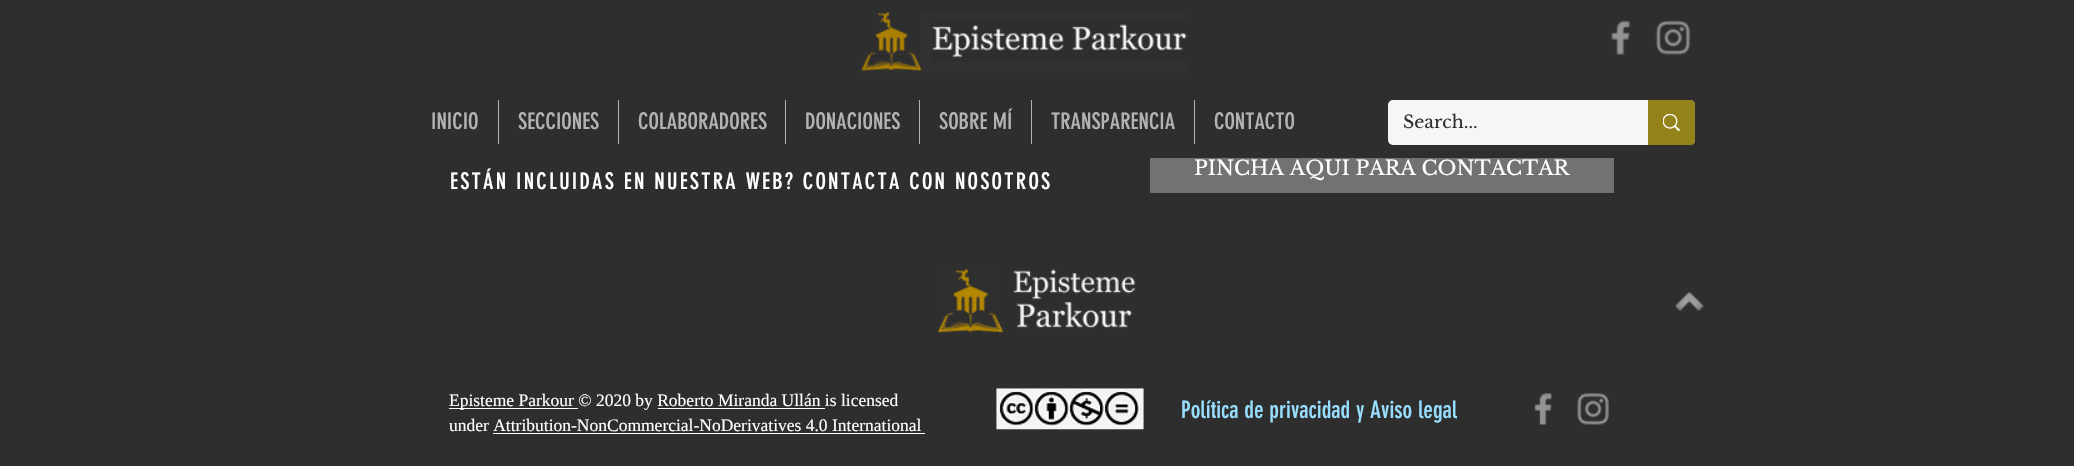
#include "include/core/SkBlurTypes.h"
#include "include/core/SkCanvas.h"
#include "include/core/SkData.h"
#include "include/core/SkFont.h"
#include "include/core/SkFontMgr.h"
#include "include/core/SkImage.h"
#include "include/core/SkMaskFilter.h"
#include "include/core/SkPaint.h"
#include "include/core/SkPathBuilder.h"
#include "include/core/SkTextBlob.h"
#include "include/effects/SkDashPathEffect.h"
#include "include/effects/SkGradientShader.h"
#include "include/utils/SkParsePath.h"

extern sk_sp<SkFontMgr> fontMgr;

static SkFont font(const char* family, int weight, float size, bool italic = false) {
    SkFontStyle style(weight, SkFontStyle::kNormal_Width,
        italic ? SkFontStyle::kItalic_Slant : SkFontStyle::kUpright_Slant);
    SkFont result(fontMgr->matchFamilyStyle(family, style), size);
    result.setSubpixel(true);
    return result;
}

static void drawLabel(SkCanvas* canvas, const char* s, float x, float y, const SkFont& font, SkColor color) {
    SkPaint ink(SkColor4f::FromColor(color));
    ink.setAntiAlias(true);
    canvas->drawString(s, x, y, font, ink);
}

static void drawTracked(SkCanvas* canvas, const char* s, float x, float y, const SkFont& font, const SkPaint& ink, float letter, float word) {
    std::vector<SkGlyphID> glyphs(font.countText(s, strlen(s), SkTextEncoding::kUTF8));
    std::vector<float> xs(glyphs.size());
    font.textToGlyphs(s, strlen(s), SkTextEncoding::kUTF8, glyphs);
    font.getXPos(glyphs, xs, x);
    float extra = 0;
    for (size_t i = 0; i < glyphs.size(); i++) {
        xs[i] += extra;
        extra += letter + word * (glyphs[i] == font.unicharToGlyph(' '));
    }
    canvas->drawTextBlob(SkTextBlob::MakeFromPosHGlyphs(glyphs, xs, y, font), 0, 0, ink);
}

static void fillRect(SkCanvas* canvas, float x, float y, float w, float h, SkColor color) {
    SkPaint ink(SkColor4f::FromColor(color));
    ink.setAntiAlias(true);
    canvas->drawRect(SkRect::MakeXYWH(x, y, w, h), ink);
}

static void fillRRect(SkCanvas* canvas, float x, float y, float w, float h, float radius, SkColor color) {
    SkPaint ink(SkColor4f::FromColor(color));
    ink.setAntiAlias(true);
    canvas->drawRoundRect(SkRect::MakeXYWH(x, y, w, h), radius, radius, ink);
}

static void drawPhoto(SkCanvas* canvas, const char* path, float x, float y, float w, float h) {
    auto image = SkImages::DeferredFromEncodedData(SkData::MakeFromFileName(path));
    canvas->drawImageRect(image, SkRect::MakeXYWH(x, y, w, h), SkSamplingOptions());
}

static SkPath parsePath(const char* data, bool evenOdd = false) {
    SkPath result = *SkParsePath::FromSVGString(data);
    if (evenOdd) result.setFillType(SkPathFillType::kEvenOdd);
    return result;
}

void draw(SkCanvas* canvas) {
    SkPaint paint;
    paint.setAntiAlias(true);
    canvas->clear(0xFF2F2E2E);
    drawPhoto(canvas, "assets/img1.png", 861, 12, 326, 61);
    drawPhoto(canvas, "assets/img2.png", 1611, 20, 20, 35);
    drawPhoto(canvas, "assets/img3.png", 1655, 20, 36, 35);
    SkFont font1 = font("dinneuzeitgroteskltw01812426", 400, 22.5f);
    drawLabel(canvas, "INICIO", 431, 129, font1, 0xFFB3B3B3);
    fillRect(canvas, 498, 100, 1, 44, 0xFFB3B3B3);
    drawLabel(canvas, "SECCIONES", 518, 129, font1, 0xFFB3B3B3);
    fillRect(canvas, 618, 100, 1, 44, 0xFFB3B3B3);
    drawLabel(canvas, "COLABORADORES", 638, 129, font1, 0xFFB3B3B3);
    fillRect(canvas, 785, 100, 1, 44, 0xFFB3B3B3);
    drawLabel(canvas, "DONACIONES", 805, 129, font1, 0xFFB3B3B3);
    fillRect(canvas, 919, 100, 1, 44, 0xFFB3B3B3);
    drawLabel(canvas, "SOBRE MÍ", 939, 129, font1, 0xFFB3B3B3);
    fillRect(canvas, 1031, 100, 1, 44, 0xFFB3B3B3);
    drawLabel(canvas, "TRANSPARENCIA", 1051, 129, font1, 0xFFB3B3B3);
    fillRect(canvas, 1194, 100, 1, 44, 0xFFB3B3B3);
    drawLabel(canvas, "CONTACTO", 1214, 129, font1, 0xFFB3B3B3);
    fillRRect(canvas, 1388, 100, 307, 45, 5, 0xFFF6F6F6);
    SkFont font2 = font("Libre Baskerville", 400, 17.5f);
    drawLabel(canvas, "Search...", 1403, 128, font2, 0xFF2F2E2E);
    paint.setColor(0xFF94821B);
    canvas->drawPath(parsePath("M1648 100H1690C1693 100 1695 102 1695 105V140C1695 143 1693 145 1690 145H1648Z"), paint);
    drawPhoto(canvas, "assets/img4.png", 1663, 114, 17, 17);
    fillRect(canvas, 1150, 158, 464, 35, 0xFF727272);
    SkFont font3 = font("Libre Baskerville", 400, 20);
    drawLabel(canvas, "PINCHA AQUÍ PARA CONTACTAR", 1194, 175, font3, 0xFFFFFFFF);
    fillRect(canvas, 1343, 155, 6, 3, 0xFF2F2E2E);
    paint.setColor(0xFFFFFFFF);
    drawTracked(canvas, "ESTÁN INCLUIDAS EN NUESTRA WEB? CONTACTA CON NOSOTROS", 450, 189, font1, paint, 2.25f, 0);
    drawPhoto(canvas, "assets/img5.png", 937, 268, 199, 65);
    drawPhoto(canvas, "assets/img6.png", 1675, 292, 29, 19);
    fillRect(canvas, 449, 408, 129, 1, 0xFFFFFFFF);
    SkFont font4 = font("Liberation Serif", 400, 17.5f);
    drawLabel(canvas, "Episteme Parkour © 2020 by Roberto Miranda Ullán is licensed", 449, 406, font4, 0xFFFFFFFF);
    fillRect(canvas, 658, 408, 167, 1, 0xFFFFFFFF);
    drawLabel(canvas, "under Attribution-NonCommercial-NoDerivatives 4.0 International", 449, 431, font4, 0xFFFFFFFF);
    fillRect(canvas, 493, 433, 432, 1, 0xFFFFFFFF);
    drawPhoto(canvas, "assets/img7.png", 996, 388, 148, 42);
    SkFont font5 = font("dinneuzeitgroteskltw01812426", 400, 23.75f);
    drawLabel(canvas, "Política de privacidad y Aviso legal", 1181, 418, font5, 0xFF97DEFF);
    drawPhoto(canvas, "assets/img8.png", 1534, 393, 18, 32);
    drawPhoto(canvas, "assets/img9.png", 1577, 393, 32, 32);
}
